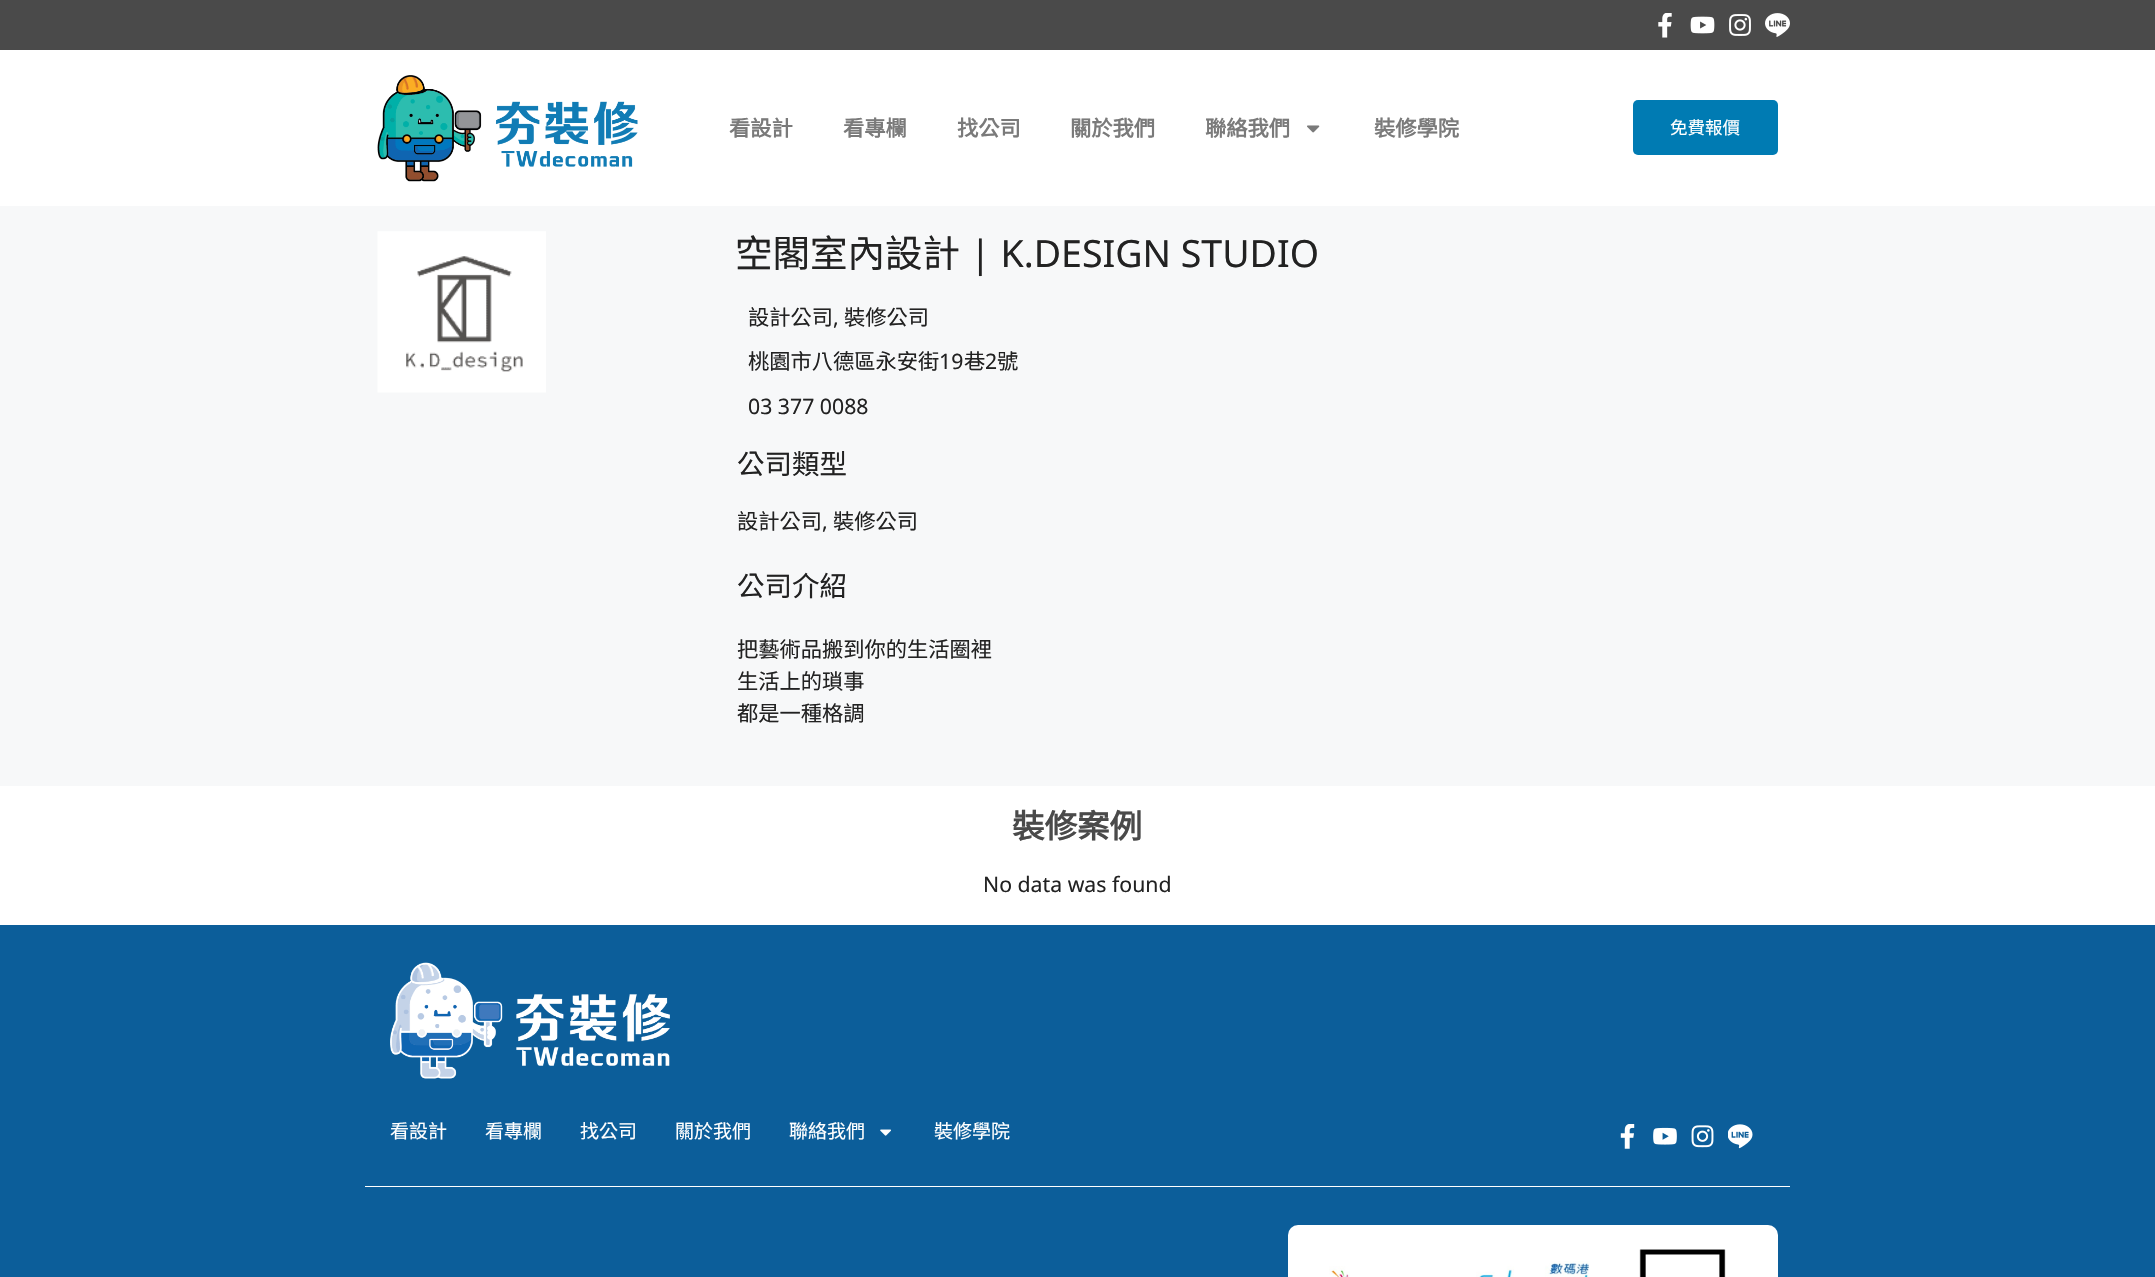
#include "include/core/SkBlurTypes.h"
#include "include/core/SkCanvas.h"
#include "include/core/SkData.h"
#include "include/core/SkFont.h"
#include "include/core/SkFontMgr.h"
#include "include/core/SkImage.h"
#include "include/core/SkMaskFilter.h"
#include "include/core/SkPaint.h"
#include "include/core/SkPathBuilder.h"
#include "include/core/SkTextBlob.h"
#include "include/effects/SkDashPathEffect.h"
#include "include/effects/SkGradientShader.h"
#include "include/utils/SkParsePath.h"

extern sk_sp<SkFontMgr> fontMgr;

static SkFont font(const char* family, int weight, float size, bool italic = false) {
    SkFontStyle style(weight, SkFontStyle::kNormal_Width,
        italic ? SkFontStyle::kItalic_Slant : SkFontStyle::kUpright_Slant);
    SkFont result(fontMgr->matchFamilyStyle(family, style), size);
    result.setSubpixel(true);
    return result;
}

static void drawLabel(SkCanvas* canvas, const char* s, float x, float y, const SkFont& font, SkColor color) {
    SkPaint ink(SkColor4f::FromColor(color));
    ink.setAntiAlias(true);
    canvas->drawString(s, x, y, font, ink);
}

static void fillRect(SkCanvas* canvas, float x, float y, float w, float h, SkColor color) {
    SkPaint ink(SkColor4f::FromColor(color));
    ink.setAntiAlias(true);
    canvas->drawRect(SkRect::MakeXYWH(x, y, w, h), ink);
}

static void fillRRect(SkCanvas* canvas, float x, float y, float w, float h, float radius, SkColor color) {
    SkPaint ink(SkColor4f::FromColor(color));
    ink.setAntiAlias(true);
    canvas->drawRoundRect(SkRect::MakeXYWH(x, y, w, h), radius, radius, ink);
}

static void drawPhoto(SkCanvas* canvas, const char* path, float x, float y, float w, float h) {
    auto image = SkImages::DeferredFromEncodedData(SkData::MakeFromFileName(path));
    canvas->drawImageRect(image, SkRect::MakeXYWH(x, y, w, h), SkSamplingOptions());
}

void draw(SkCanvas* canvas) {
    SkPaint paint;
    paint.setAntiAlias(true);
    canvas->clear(0xFFF7F8F9);
    fillRect(canvas, 0, 0, 2155, 50, 0xFF4A4A4A);
    drawPhoto(canvas, "assets/img1.png", 1658, 13, 14, 25);
    drawPhoto(canvas, "assets/img2.png", 1690, 16, 25, 18);
    drawPhoto(canvas, "assets/img3.png", 1729, 14, 22, 22);
    drawPhoto(canvas, "assets/img4.png", 1765, 13, 25, 24);
    fillRect(canvas, 0, 50, 2155, 156, 0xFFFFFFFF);
    drawPhoto(canvas, "assets/img5.png", 377, 75, 261, 107);
    SkFont font1 = font("Noto Sans CJK TC", 700, 21.25f);
    drawLabel(canvas, "看設計", 729, 136, font1, 0xFF7A7A7A);
    drawLabel(canvas, "看專欄", 843, 136, font1, 0xFF7A7A7A);
    drawLabel(canvas, "找公司", 957, 136, font1, 0xFF7A7A7A);
    drawLabel(canvas, "關於我們", 1070, 136, font1, 0xFF7A7A7A);
    drawLabel(canvas, "聯絡我們", 1205, 136, font1, 0xFF7A7A7A);
    drawPhoto(canvas, "assets/img6.png", 1307, 125, 13, 8);
    drawLabel(canvas, "裝修學院", 1374, 136, font1, 0xFF7A7A7A);
    fillRRect(canvas, 1633, 100, 145, 55, 5, 0xFF007BB3);
    SkFont font2 = font("Noto Sans CJK TC", 400, 17.5f);
    drawLabel(canvas, "免費報價", 1670, 134, font2, 0xFFFFFFFF);
    drawPhoto(canvas, "assets/img7.png", 377, 231, 169, 162);
    SkFont font3 = font("Noto Sans CJK TC", 400, 37.5f);
    drawLabel(canvas, "空閣室內設計", 735, 267, font3, 0xFF222222);
    SkFont font4 = font("Noto Sans", 400, 37.5f);
    drawLabel(canvas, "| K.DESIGN STUDIO", 970, 267, font4, 0xFF222222);
    SkFont font5 = font("Noto Sans CJK TC", 400, 21.25f);
    drawLabel(canvas, "設計公司", 748, 325, font5, 0xFF222222);
    SkFont font6 = font("Noto Sans", 400, 21.25f);
    drawLabel(canvas, ",", 833, 325, font6, 0xFF222222);
    drawLabel(canvas, "裝修公司", 844, 325, font5, 0xFF222222);
    drawLabel(canvas, "桃園市八德區永安街", 748, 369, font5, 0xFF222222);
    drawLabel(canvas, "19", 939, 369, font6, 0xFF222222);
    drawLabel(canvas, "巷", 964, 369, font5, 0xFF222222);
    drawLabel(canvas, "2", 985, 369, font6, 0xFF222222);
    drawLabel(canvas, "號", 997, 369, font5, 0xFF222222);
    drawLabel(canvas, "03 377 0088", 748, 414, font6, 0xFF222222);
    SkFont font7 = font("Noto Sans CJK TC", 400, 27.5f);
    drawLabel(canvas, "公司類型", 737, 474, font7, 0xFF222222);
    drawLabel(canvas, "設計公司", 737, 529, font5, 0xFF222222);
    drawLabel(canvas, ",", 822, 529, font6, 0xFF222222);
    drawLabel(canvas, "裝修公司", 833, 529, font5, 0xFF222222);
    drawLabel(canvas, "公司介紹", 737, 596, font7, 0xFF222222);
    drawLabel(canvas, "把藝術品搬到你的生活圈裡", 737, 657, font5, 0xFF222222);
    drawLabel(canvas, "生活上的瑣事", 737, 689, font5, 0xFF222222);
    drawLabel(canvas, "都是一種格調", 737, 721, font5, 0xFF222222);
    fillRect(canvas, 0, 786, 2155, 139, 0xFFFFFFFF);
    SkFont font8 = font("Noto Sans CJK TC", 700, 32.5f);
    drawLabel(canvas, "裝修案例", 1012, 838, font8, 0xFF4A4A4A);
    drawLabel(canvas, "No data was found", 983, 892, font6, 0xFF222222);
    fillRect(canvas, 0, 925, 2155, 352, 0xFF0C5E9A);
    fillRect(canvas, 365, 1186, 1425, 1, 0xFFFFFFFF);
    drawPhoto(canvas, "assets/img8.png", 390, 962, 280, 117);
    SkFont font9 = font("Noto Sans CJK TC", 400, 19);
    drawLabel(canvas, "看設計", 390, 1138, font9, 0xFFFFFFFF);
    drawLabel(canvas, "看專欄", 485, 1138, font9, 0xFFFFFFFF);
    drawLabel(canvas, "找公司", 580, 1138, font9, 0xFFFFFFFF);
    drawLabel(canvas, "關於我們", 675, 1138, font9, 0xFFFFFFFF);
    drawLabel(canvas, "聯絡我們", 789, 1138, font9, 0xFFFFFFFF);
    drawPhoto(canvas, "assets/img9.png", 880, 1129, 11, 7);
    drawLabel(canvas, "裝修學院", 934, 1138, font9, 0xFFFFFFFF);
    drawPhoto(canvas, "assets/img10.png", 1620, 1124, 15, 25);
    drawPhoto(canvas, "assets/img11.png", 1653, 1127, 24, 18);
    drawPhoto(canvas, "assets/img12.png", 1691, 1125, 23, 23);
    drawPhoto(canvas, "assets/img13.png", 1728, 1124, 25, 25);
    fillRRect(canvas, 1288, 1225, 490, 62, 10, 0xFFFFFFFF);
    drawPhoto(canvas, "assets/img14.png", 1329, 1266, 21, 11);
    drawPhoto(canvas, "assets/img15.png", 1476, 1261, 113, 16);
    drawPhoto(canvas, "assets/img16.png", 1639, 1249, 87, 28);
}
